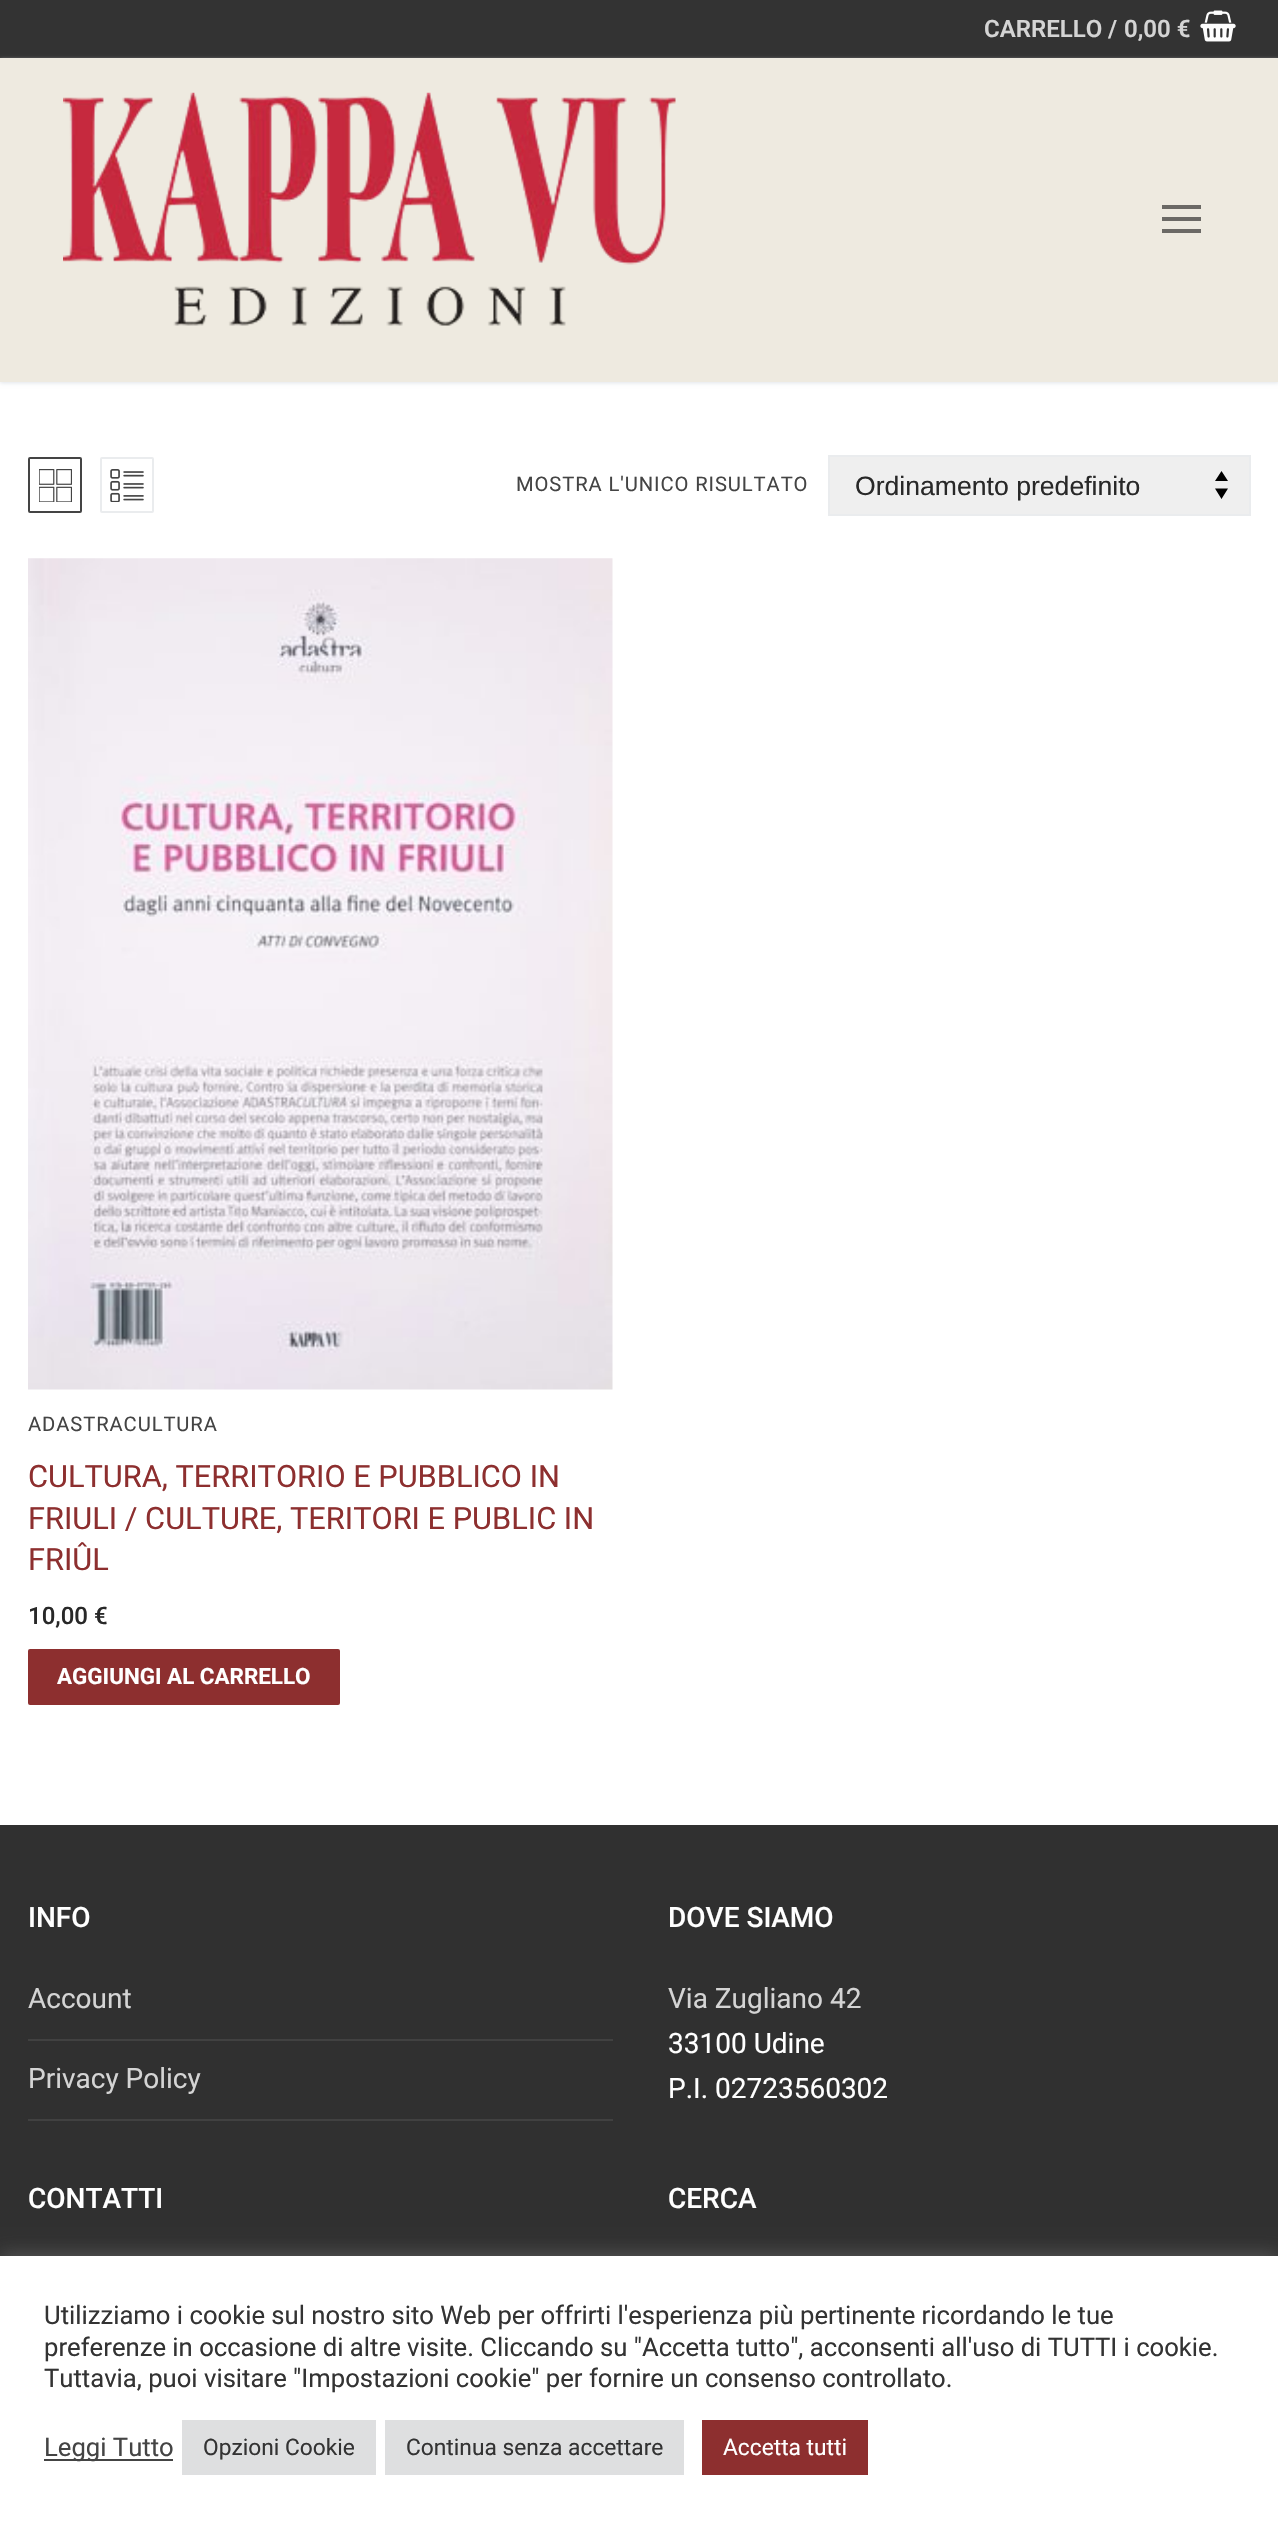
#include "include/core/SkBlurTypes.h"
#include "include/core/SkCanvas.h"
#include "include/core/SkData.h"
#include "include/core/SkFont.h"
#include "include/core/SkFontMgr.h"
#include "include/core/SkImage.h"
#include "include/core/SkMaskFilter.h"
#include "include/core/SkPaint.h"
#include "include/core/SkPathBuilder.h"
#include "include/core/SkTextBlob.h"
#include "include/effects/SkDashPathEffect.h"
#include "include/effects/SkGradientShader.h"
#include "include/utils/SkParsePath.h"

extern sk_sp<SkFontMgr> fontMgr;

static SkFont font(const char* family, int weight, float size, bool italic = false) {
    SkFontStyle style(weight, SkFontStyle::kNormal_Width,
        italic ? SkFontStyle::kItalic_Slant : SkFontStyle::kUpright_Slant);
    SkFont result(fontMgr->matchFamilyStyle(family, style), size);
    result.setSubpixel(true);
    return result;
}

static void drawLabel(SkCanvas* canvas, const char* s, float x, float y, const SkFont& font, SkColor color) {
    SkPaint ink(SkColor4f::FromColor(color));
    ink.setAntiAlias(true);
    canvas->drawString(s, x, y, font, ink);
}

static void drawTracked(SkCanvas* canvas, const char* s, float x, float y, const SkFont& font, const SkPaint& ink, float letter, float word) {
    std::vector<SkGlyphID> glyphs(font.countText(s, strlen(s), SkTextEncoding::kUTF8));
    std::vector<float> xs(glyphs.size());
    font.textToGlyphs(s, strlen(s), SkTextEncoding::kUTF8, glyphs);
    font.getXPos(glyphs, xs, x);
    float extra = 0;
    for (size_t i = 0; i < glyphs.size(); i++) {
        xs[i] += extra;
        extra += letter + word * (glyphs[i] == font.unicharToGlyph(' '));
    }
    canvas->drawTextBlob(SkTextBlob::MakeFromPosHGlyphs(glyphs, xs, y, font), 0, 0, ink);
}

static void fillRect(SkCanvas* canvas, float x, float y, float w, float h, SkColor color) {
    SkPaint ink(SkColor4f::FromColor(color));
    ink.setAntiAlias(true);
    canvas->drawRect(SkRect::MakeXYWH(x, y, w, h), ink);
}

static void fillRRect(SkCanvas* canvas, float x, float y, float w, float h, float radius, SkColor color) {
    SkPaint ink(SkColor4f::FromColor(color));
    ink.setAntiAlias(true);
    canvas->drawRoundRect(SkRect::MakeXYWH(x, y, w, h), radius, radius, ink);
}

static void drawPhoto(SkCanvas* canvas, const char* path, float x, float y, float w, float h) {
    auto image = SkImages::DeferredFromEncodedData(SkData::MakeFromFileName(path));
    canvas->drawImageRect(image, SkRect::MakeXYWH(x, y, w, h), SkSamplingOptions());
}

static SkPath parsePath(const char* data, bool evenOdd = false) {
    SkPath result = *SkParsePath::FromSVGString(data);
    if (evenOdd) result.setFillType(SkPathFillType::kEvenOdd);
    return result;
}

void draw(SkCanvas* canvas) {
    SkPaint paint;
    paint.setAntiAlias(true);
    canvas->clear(0xFFFFFFFF);
    fillRect(canvas, 0, 0, 1278, 58, 0xFF333333);
    SkFont font1 = font("Roboto", 600, 24);
    drawLabel(canvas, "CARRELLO", 984, 37, font1, 0xFFD4D4D4);
    drawLabel(canvas, "/", 1108, 37, font1, 0xFFD4D4D4);
    drawLabel(canvas, "0,00 €", 1124, 37, font1, 0xFFD4D4D4);
    drawPhoto(canvas, "assets/img1.png", 1200, 10, 36, 32);
    paint.setColor(0xFFE1E5EA);
    paint.setMaskFilter(SkMaskFilter::MakeBlur(kNormal_SkBlurStyle, 2));
    canvas->drawRect(SkRect::MakeXYWH(0, 60, 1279, 323), paint);
    paint.setMaskFilter(nullptr);
    fillRect(canvas, 0, 58, 1278, 324, 0xFFEEEAE0);
    drawPhoto(canvas, "assets/img2.png", 63, 92, 613, 234);
    fillRect(canvas, 1162, 217, 39, 4, 0xFF6B6965);
    fillRect(canvas, 1162, 205, 39, 4, 0xFF6B6965);
    fillRect(canvas, 1162, 229, 39, 4, 0xFF6B6965);
    paint.setStroke(true);
    paint.setStrokeWidth(2);
    paint.setColor(0xFF444444);
    canvas->drawRoundRect(SkRect::MakeXYWH(29, 458, 52, 54), 1, 1, paint);
    drawPhoto(canvas, "assets/img3.png", 39, 469, 33, 33);
    paint.setColor(0xFFEAECEE);
    canvas->drawRoundRect(SkRect::MakeXYWH(101, 458, 52, 54), 1, 1, paint);
    drawPhoto(canvas, "assets/img4.png", 110, 469, 34, 33);
    SkFont font2 = font("Roboto", 400, 20.2f);
    paint.setStroke(false);
    paint.setColor(0xFF444444);
    drawTracked(canvas, "MOSTRA L'UNICO RISULTATO", 516, 491, font2, paint, 0.9f, 0);
    fillRect(canvas, 830, 457, 419, 57, 0xFFEFEFEF);
    paint.setColor(0xFF000000);
    canvas->drawPath(parsePath("M1221.5 471L1215 481H1228ZM1221.5 499L1228 488.5H1215Z"), paint);
    paint.setStroke(true);
    paint.setColor(0xFFEAECEE);
    canvas->drawRect(SkRect::MakeXYWH(829, 456, 421, 59), paint);
    SkFont font3 = font("Liberation Sans", 400, 26.6f);
    drawLabel(canvas, "Ordinamento predefinito", 855, 495, font3, 0xFF282828);
    drawPhoto(canvas, "assets/img5.png", 28, 558, 585, 832);
    paint.setStroke(false);
    paint.setColor(0xFF444444);
    drawTracked(canvas, "ADASTRACULTURA", 28, 1431, font2, paint, 0.9f, 0);
    SkFont font4 = font("Roboto", 400, 30.75f);
    drawLabel(canvas, "CULTURA, TERRITORIO E PUBBLICO IN", 28, 1487, font4, 0xFF8D2F2F);
    drawLabel(canvas, "FRIULI / CULTURE, TERITORI E PUBLIC IN", 28, 1529, font4, 0xFF8D2F2F);
    drawLabel(canvas, "FRIÛL", 28, 1570, font4, 0xFF8D2F2F);
    SkFont font5 = font("Roboto", 500, 24);
    drawLabel(canvas, "10,00 €", 28, 1624, font5, 0xFF282828);
    fillRRect(canvas, 28, 1649, 312, 56, 2, 0xFF8D2F2F);
    SkFont font6 = font("Roboto", 700, 22.4f);
    drawLabel(canvas, "AGGIUNGI AL CARRELLO", 57, 1684, font6, 0xFFFFFFFF);
    fillRect(canvas, 0, 1825, 1278, 431, 0xFF303030);
    SkFont font7 = font("Roboto", 500, 28);
    drawLabel(canvas, "INFO", 28, 1927, font7, 0xFFFFFFFF);
    fillRect(canvas, 28, 2039, 585, 2, 0xFF414141);
    SkFont font8 = font("Roboto", 400, 28);
    drawLabel(canvas, "Account", 28, 2008, font8, 0xFFD4D4D4);
    fillRect(canvas, 28, 2119, 585, 2, 0xFF414141);
    drawLabel(canvas, "Privacy Policy", 28, 2088, font8, 0xFFD4D4D4);
    drawLabel(canvas, "DOVE SIAMO", 668, 1927, font7, 0xFFFFFFFF);
    drawLabel(canvas, "Via Zugliano 42", 668, 2008, font8, 0xFFD4D4D4);
    drawLabel(canvas, "33100 Udine", 668, 2053, font8, 0xFFFFFFFF);
    drawLabel(canvas, "P.I. 02723560302", 668, 2098, font8, 0xFFFFFFFF);
    drawLabel(canvas, "CONTATTI", 28, 2208, font7, 0xFFFFFFFF);
    drawLabel(canvas, "CERCA", 668, 2208, font7, 0xFFFFFFFF);
    paint.setColor(0x4DACABAB);
    paint.setMaskFilter(SkMaskFilter::MakeBlur(kNormal_SkBlurStyle, 9));
    canvas->drawRect(SkRect::MakeXYWH(0, 2254, 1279, 271), paint);
    paint.setMaskFilter(nullptr);
    fillRect(canvas, 0, 2256, 1278, 271, 0xFFFFFFFF);
    SkFont font9 = font("Roboto", 400, 25.65f);
    drawLabel(canvas, "Utilizziamo i cookie sul nostro sito Web per offrirti l'esperienza più pertinente ricordando le tue", 44, 2324, font9, 0xFF333333);
    drawLabel(canvas, "preferenze in occasione di altre visite. Cliccando su \"Accetta tutto\", acconsenti all'uso di TUTTI i cookie.", 44, 2356, font9, 0xFF333333);
    drawLabel(canvas, "Tuttavia, puoi visitare \"Impostazioni cookie\" per fornire un consenso controllato.", 44, 2387, font9, 0xFF333333);
    fillRect(canvas, 44, 2459, 129, 2, 0xFF444444);
    drawLabel(canvas, "Leggi Tutto", 44, 2456, font9, 0xFF444444);
    fillRect(canvas, 182, 2420, 194, 55, 0xFFDEDFE0);
    SkFont font10 = font("Roboto", 400, 22.75f);
    drawLabel(canvas, "Opzioni Cookie", 203, 2455, font10, 0xFF333333);
    fillRect(canvas, 385, 2420, 299, 55, 0xFFDEDFE0);
    drawLabel(canvas, "Continua senza accettare", 406, 2455, font10, 0xFF333333);
    fillRect(canvas, 702, 2420, 166, 55, 0xFF8D2F2F);
    drawLabel(canvas, "Accetta tutti", 723, 2455, font10, 0xFFFFFFFF);
}
